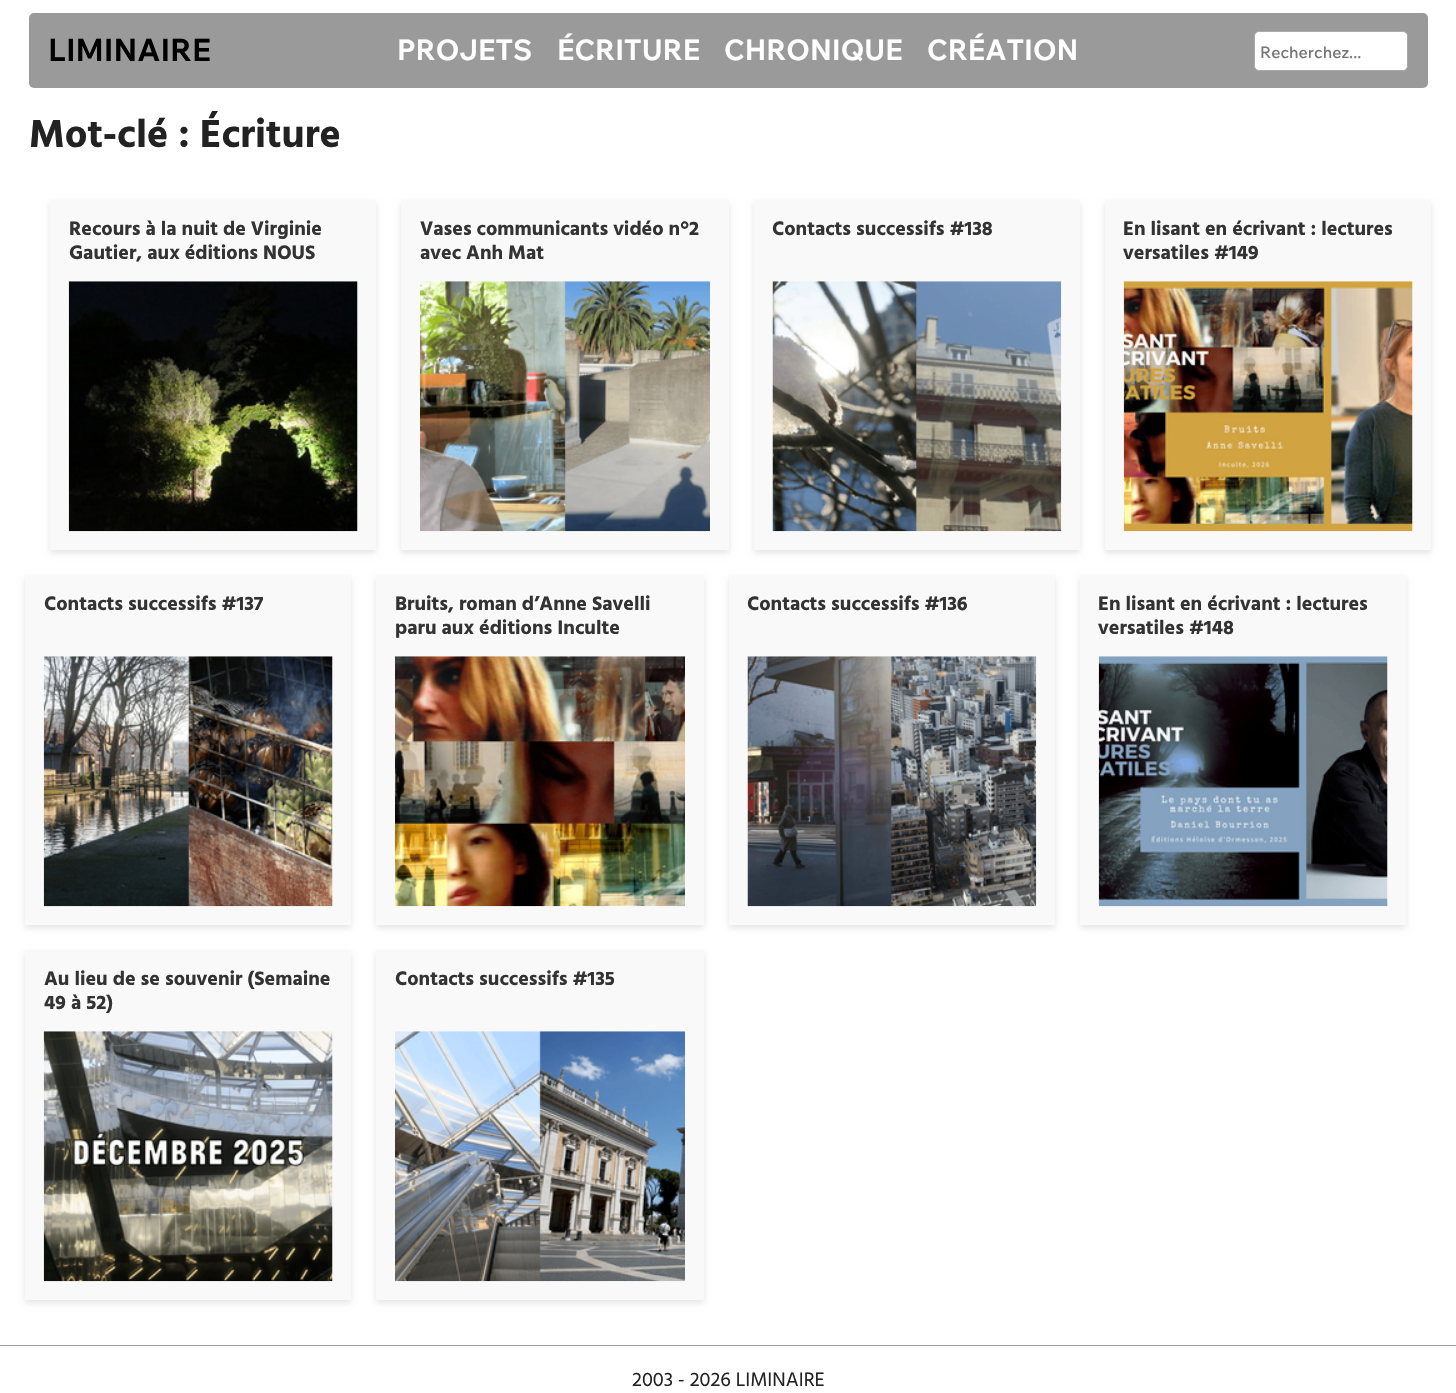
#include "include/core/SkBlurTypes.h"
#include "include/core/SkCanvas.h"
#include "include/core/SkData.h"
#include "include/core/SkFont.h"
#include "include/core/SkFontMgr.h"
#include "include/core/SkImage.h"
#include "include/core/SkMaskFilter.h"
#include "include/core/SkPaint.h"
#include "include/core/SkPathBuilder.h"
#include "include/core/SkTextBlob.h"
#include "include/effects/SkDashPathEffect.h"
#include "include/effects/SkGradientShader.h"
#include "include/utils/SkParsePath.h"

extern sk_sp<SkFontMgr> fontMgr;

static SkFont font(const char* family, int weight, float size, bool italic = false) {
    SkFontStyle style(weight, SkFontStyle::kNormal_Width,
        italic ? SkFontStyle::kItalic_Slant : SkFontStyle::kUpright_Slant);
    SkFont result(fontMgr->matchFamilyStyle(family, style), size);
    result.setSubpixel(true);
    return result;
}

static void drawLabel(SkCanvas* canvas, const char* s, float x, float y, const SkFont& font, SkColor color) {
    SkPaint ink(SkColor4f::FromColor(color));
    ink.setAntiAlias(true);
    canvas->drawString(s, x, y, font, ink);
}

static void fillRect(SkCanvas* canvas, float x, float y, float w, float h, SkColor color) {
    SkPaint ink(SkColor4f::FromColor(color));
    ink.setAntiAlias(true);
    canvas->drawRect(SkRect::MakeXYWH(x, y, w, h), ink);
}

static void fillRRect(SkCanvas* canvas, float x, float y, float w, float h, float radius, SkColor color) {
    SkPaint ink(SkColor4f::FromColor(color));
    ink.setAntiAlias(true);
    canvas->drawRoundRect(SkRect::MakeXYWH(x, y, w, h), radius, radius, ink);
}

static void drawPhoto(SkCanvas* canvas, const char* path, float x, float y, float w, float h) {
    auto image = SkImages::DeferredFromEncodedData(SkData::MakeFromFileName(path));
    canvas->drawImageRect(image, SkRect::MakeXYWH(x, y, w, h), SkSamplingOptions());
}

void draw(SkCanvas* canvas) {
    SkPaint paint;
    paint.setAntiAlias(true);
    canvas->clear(0xFFFFFFFF);
    fillRRect(canvas, 29, 13, 1399, 75, 5, 0xFF9A9A9A);
    SkFont font1 = font("Wix Madefor Text", 700, 31);
    drawLabel(canvas, "LIMINAIRE", 48, 61, font1, 0xFF000000);
    SkFont font2 = font("Wix Madefor Text", 700, 28.5f);
    drawLabel(canvas, "PROJETS", 397, 60, font2, 0xFFFFFFFF);
    drawLabel(canvas, "ÉCRITURE", 557, 60, font2, 0xFFFFFFFF);
    drawLabel(canvas, "CHRONIQUE", 724, 60, font2, 0xFFFFFFFF);
    drawLabel(canvas, "CRÉATION", 927, 60, font2, 0xFFFFFFFF);
    paint.setColor(0xFFFFFFFF);
    canvas->drawRoundRect(SkRect::MakeXYWH(1254.5f, 31.5f, 153, 39), 4.5f, 4.5f, paint);
    paint.setStroke(true);
    paint.setStrokeWidth(1);
    paint.setColor(0xFFAAAAAA);
    canvas->drawRoundRect(SkRect::MakeXYWH(1254.5f, 31.5f, 153, 39), 4.5f, 4.5f, paint);
    SkFont font3 = font("Wix Madefor Text", 500, 16);
    drawLabel(canvas, "Recherchez...", 1260, 58, font3, 0xFF757575);
    SkFont font4 = font("Hind", 700, 40);
    drawLabel(canvas, "Mot-clé : Écriture", 29, 147, font4, 0xFF222222);
    paint.setStroke(false);
    paint.setColor(0x1A000000);
    paint.setMaskFilter(SkMaskFilter::MakeBlur(kNormal_SkBlurStyle, 3));
    canvas->drawRect(SkRect::MakeXYWH(50, 203, 326, 350), paint);
    paint.setMaskFilter(nullptr);
    fillRect(canvas, 50, 200, 326, 350, 0xFFF9F9F9);
    SkFont font5 = font("Hind", 700, 20);
    drawLabel(canvas, "Recours à la nuit de Virginie", 69, 235, font5, 0xFF333333);
    drawLabel(canvas, "Gautier, aux éditions NOUS", 69, 259, font5, 0xFF333333);
    drawPhoto(canvas, "assets/img1.png", 68, 281, 290, 251);
    paint.setMaskFilter(SkMaskFilter::MakeBlur(kNormal_SkBlurStyle, 3));
    canvas->drawRect(SkRect::MakeXYWH(401, 203, 328, 350), paint);
    paint.setMaskFilter(nullptr);
    fillRect(canvas, 401, 200, 328, 350, 0xFFF9F9F9);
    drawLabel(canvas, "Vases communicants vidéo n°2", 420, 235, font5, 0xFF333333);
    drawLabel(canvas, "avec Anh Mat", 420, 259, font5, 0xFF333333);
    drawPhoto(canvas, "assets/img2.png", 420, 281, 290, 251);
    paint.setMaskFilter(SkMaskFilter::MakeBlur(kNormal_SkBlurStyle, 3));
    canvas->drawRect(SkRect::MakeXYWH(754, 203, 326, 350), paint);
    paint.setMaskFilter(nullptr);
    fillRect(canvas, 754, 200, 326, 350, 0xFFF9F9F9);
    drawLabel(canvas, "Contacts successifs #138", 772, 235, font5, 0xFF333333);
    drawPhoto(canvas, "assets/img3.png", 772, 281, 290, 251);
    paint.setMaskFilter(SkMaskFilter::MakeBlur(kNormal_SkBlurStyle, 3));
    canvas->drawRect(SkRect::MakeXYWH(1105, 203, 326, 350), paint);
    paint.setMaskFilter(nullptr);
    fillRect(canvas, 1105, 200, 326, 350, 0xFFF9F9F9);
    drawLabel(canvas, "En lisant en écrivant : lectures", 1123, 235, font5, 0xFF333333);
    drawLabel(canvas, "versatiles #149", 1123, 259, font5, 0xFF333333);
    drawPhoto(canvas, "assets/img4.png", 1123, 281, 290, 251);
    paint.setMaskFilter(SkMaskFilter::MakeBlur(kNormal_SkBlurStyle, 3));
    canvas->drawRect(SkRect::MakeXYWH(25, 578, 326, 350), paint);
    paint.setMaskFilter(nullptr);
    fillRect(canvas, 25, 575, 326, 350, 0xFFF9F9F9);
    drawLabel(canvas, "Contacts successifs #137", 44, 610, font5, 0xFF333333);
    drawPhoto(canvas, "assets/img5.png", 43, 656, 290, 251);
    paint.setMaskFilter(SkMaskFilter::MakeBlur(kNormal_SkBlurStyle, 3));
    canvas->drawRect(SkRect::MakeXYWH(376, 578, 328, 350), paint);
    paint.setMaskFilter(nullptr);
    fillRect(canvas, 376, 575, 328, 350, 0xFFF9F9F9);
    drawLabel(canvas, "Bruits, roman d’Anne Savelli", 395, 610, font5, 0xFF333333);
    drawLabel(canvas, "paru aux éditions Inculte", 395, 634, font5, 0xFF333333);
    drawPhoto(canvas, "assets/img6.png", 395, 656, 290, 251);
    paint.setMaskFilter(SkMaskFilter::MakeBlur(kNormal_SkBlurStyle, 3));
    canvas->drawRect(SkRect::MakeXYWH(729, 578, 326, 350), paint);
    paint.setMaskFilter(nullptr);
    fillRect(canvas, 729, 575, 326, 350, 0xFFF9F9F9);
    drawLabel(canvas, "Contacts successifs #136", 747, 610, font5, 0xFF333333);
    drawPhoto(canvas, "assets/img7.png", 747, 656, 290, 251);
    paint.setMaskFilter(SkMaskFilter::MakeBlur(kNormal_SkBlurStyle, 3));
    canvas->drawRect(SkRect::MakeXYWH(1080, 578, 326, 350), paint);
    paint.setMaskFilter(nullptr);
    fillRect(canvas, 1080, 575, 326, 350, 0xFFF9F9F9);
    drawLabel(canvas, "En lisant en écrivant : lectures", 1098, 610, font5, 0xFF333333);
    drawLabel(canvas, "versatiles #148", 1098, 634, font5, 0xFF333333);
    drawPhoto(canvas, "assets/img8.png", 1098, 656, 290, 251);
    paint.setMaskFilter(SkMaskFilter::MakeBlur(kNormal_SkBlurStyle, 3));
    canvas->drawRect(SkRect::MakeXYWH(25, 953, 326, 350), paint);
    paint.setMaskFilter(nullptr);
    fillRect(canvas, 25, 950, 326, 350, 0xFFF9F9F9);
    drawLabel(canvas, "Au lieu de se souvenir (Semaine", 44, 985, font5, 0xFF333333);
    drawLabel(canvas, "49 à 52)", 44, 1009, font5, 0xFF333333);
    drawPhoto(canvas, "assets/img9.png", 43, 1031, 290, 251);
    paint.setMaskFilter(SkMaskFilter::MakeBlur(kNormal_SkBlurStyle, 3));
    canvas->drawRect(SkRect::MakeXYWH(376, 953, 328, 350), paint);
    paint.setMaskFilter(nullptr);
    fillRect(canvas, 376, 950, 328, 350, 0xFFF9F9F9);
    drawLabel(canvas, "Contacts successifs #135", 395, 985, font5, 0xFF333333);
    drawPhoto(canvas, "assets/img10.png", 395, 1031, 290, 251);
    fillRect(canvas, 0, 1345, 1456, 1, 0xFF999999);
    SkFont font6 = font("Hind", 400, 20);
    drawLabel(canvas, "2003 - 2026 LIMINAIRE", 632, 1386, font6, 0xFF222222);
}
